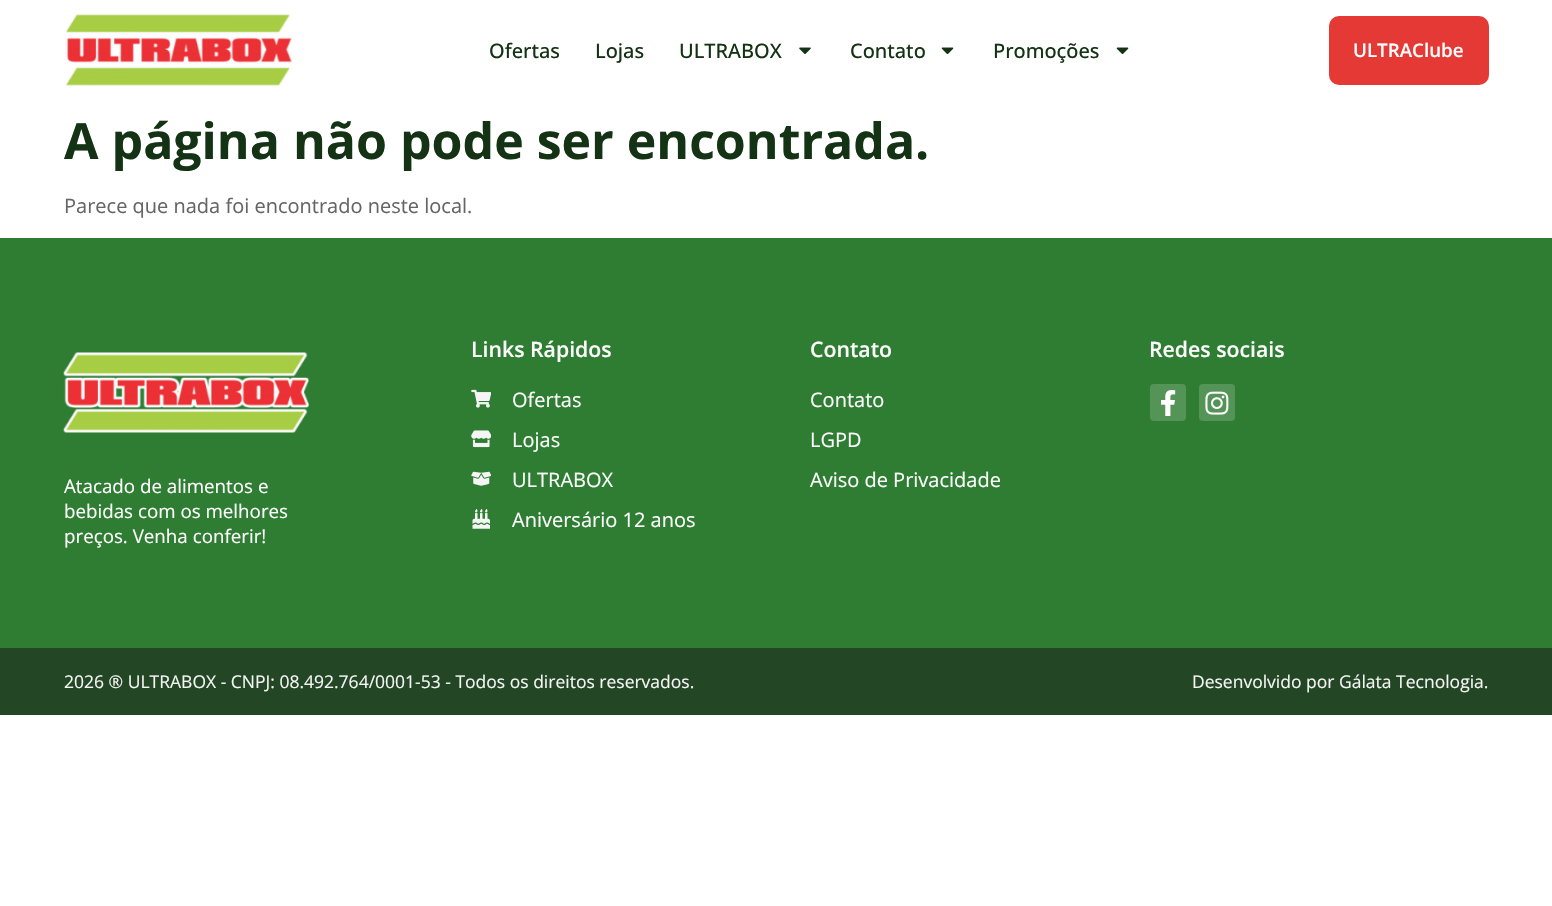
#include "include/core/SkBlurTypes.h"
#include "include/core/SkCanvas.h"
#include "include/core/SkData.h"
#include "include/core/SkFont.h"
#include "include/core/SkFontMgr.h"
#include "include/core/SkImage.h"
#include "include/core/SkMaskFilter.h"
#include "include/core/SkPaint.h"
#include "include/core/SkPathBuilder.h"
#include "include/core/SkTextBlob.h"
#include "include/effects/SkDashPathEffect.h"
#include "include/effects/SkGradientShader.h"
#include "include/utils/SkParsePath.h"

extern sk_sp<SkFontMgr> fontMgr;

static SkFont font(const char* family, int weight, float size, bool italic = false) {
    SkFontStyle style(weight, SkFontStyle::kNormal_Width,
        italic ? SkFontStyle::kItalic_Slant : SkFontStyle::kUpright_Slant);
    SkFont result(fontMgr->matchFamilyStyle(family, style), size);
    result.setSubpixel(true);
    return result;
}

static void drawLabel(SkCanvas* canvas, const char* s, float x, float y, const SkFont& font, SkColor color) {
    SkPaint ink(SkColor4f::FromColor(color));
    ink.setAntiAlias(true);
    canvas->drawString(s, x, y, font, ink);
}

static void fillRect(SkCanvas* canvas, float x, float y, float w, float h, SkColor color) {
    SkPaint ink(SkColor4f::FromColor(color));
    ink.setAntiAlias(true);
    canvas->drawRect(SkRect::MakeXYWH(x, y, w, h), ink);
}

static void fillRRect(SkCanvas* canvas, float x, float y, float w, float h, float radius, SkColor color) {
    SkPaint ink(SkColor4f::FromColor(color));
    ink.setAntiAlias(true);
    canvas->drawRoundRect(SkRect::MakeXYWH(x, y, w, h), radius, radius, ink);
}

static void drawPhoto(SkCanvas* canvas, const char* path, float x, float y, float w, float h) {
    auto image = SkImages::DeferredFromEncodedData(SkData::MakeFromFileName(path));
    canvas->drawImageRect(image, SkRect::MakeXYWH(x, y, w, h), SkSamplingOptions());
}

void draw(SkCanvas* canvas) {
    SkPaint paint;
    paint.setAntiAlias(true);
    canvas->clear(0xFFFFFFFF);
    drawPhoto(canvas, "assets/img1.png", 65, 14, 228, 72);
    SkFont font1 = font("Open Sans", 500, 20);
    drawLabel(canvas, "Ofertas", 489, 58, font1, 0xFF143315);
    drawLabel(canvas, "Lojas", 595, 58, font1, 0xFF143315);
    drawLabel(canvas, "ULTRABOX", 679, 58, font1, 0xFF143315);
    drawPhoto(canvas, "assets/img2.png", 799, 47, 12, 7);
    drawLabel(canvas, "Contato", 850, 58, font1, 0xFF143315);
    drawPhoto(canvas, "assets/img3.png", 941, 47, 13, 7);
    drawLabel(canvas, "Promoções", 993, 58, font1, 0xFF143315);
    drawPhoto(canvas, "assets/img3.png", 1116, 47, 13, 7);
    fillRRect(canvas, 1329, 16, 160, 69, 10, 0xFFE53935);
    SkFont font2 = font("Open Sans", 600, 18.75f);
    drawLabel(canvas, "ULTRAClube", 1353, 57, font2, 0xFFFFFFFF);
    SkFont font3 = font("Open Sans", 700, 50);
    drawLabel(canvas, "A página não pode ser encontrada.", 64, 159, font3, 0xFF143315);
    SkFont font4 = font("Open Sans", 400, 20);
    drawLabel(canvas, "Parece que nada foi encontrado neste local.", 64, 213, font4, 0xFF656565);
    fillRect(canvas, 0, 238, 1552, 410, 0xFF2E7D32);
    SkFont font5 = font("Open Sans", 600, 21.25f);
    drawLabel(canvas, "Links Rápidos", 471, 357, font5, 0xFFFFFFFF);
    drawPhoto(canvas, "assets/img4.png", 471, 389, 20, 19);
    drawLabel(canvas, "Ofertas", 512, 407, font4, 0xFFFFFFFF);
    drawPhoto(canvas, "assets/img5.png", 471, 430, 20, 18);
    drawLabel(canvas, "Lojas", 512, 447, font4, 0xFFFFFFFF);
    drawPhoto(canvas, "assets/img6.png", 471, 471, 20, 15);
    drawLabel(canvas, "ULTRABOX", 512, 487, font4, 0xFFFFFFFF);
    drawPhoto(canvas, "assets/img7.png", 472, 509, 18, 20);
    drawLabel(canvas, "Aniversário 12 anos", 512, 527, font4, 0xFFFFFFFF);
    drawLabel(canvas, "Contato", 810, 357, font5, 0xFFFFFFFF);
    drawLabel(canvas, "Contato", 810, 407, font4, 0xFFFFFFFF);
    drawLabel(canvas, "LGPD", 810, 447, font4, 0xFFFFFFFF);
    drawLabel(canvas, "Aviso de Privacidade", 810, 487, font4, 0xFFFFFFFF);
    drawLabel(canvas, "Redes sociais", 1149, 357, font5, 0xFFFFFFFF);
    fillRRect(canvas, 1150, 384, 36, 37, 4, 0xFF549457);
    drawPhoto(canvas, "assets/img8.png", 1161, 390, 15, 26);
    fillRRect(canvas, 1199, 384, 36, 37, 4, 0xFF549457);
    drawPhoto(canvas, "assets/img9.png", 1205, 391, 24, 24);
    drawPhoto(canvas, "assets/img10.png", 63, 352, 246, 81);
    SkFont font6 = font("Open Sans", 400, 18.75f);
    drawLabel(canvas, "Atacado de alimentos e", 64, 493, font6, 0xFFFFFFFF);
    drawLabel(canvas, "bebidas com os melhores", 64, 518, font6, 0xFFFFFFFF);
    drawLabel(canvas, "preços. Venha conferir!", 64, 543, font6, 0xFFFFFFFF);
    fillRect(canvas, 0, 648, 1552, 67, 0xFF234625);
    SkFont font7 = font("Open Sans", 400, 17.5f);
    drawLabel(canvas, "2026 ® ULTRABOX - CNPJ: 08.492.764/0001-53 - Todos os direitos reservados.", 64, 688, font7, 0xFFF5F5F5);
    drawLabel(canvas, "Desenvolvido por Gálata Tecnologia.", 1192, 688, font7, 0xFFF5F5F5);
}
